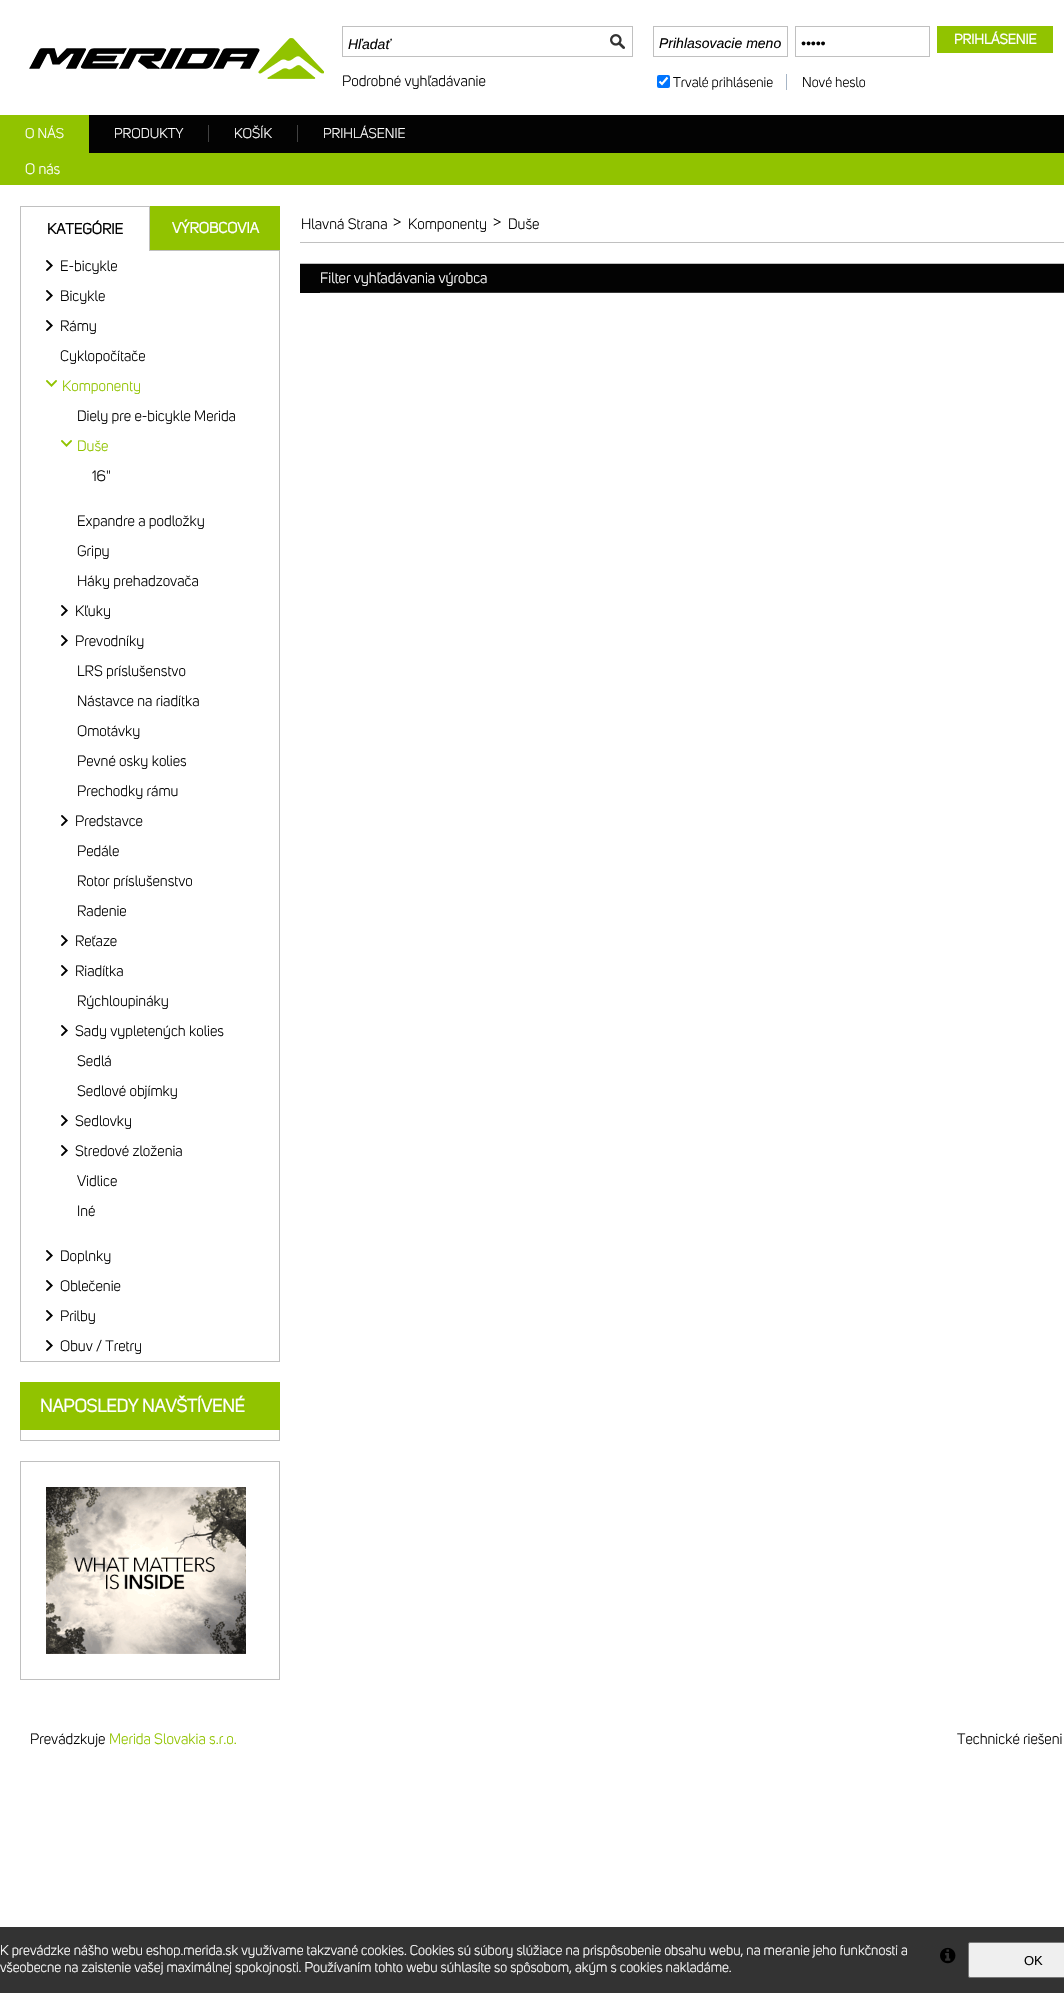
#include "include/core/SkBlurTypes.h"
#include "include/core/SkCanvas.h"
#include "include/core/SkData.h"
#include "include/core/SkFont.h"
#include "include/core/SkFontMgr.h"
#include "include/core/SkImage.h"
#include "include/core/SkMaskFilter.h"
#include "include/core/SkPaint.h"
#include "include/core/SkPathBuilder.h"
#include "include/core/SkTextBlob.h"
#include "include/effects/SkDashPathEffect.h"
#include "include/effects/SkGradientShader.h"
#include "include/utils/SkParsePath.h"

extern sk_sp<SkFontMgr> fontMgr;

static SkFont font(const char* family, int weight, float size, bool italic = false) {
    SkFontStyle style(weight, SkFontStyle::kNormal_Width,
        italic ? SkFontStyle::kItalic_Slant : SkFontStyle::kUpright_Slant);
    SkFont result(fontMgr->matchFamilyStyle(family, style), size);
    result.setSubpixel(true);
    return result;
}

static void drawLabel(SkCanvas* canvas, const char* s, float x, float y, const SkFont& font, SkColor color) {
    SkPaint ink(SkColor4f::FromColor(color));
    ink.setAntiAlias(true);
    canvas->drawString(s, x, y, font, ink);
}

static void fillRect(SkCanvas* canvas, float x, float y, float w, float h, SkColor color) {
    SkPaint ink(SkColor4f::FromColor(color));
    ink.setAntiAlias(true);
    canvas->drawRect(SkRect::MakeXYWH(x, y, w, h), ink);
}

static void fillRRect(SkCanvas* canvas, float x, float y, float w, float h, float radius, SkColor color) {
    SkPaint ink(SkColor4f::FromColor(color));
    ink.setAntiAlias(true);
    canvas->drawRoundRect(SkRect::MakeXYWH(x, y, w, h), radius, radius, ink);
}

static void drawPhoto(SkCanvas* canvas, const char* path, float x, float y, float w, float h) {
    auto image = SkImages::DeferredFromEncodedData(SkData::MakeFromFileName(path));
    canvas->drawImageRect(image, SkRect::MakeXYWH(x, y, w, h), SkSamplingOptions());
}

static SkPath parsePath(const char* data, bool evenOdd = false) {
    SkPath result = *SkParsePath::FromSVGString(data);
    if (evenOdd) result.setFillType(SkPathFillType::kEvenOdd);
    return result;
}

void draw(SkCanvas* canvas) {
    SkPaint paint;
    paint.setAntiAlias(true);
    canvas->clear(0xFFFFFFFF);
    drawPhoto(canvas, "assets/img1.png", 29, 38, 295, 41);
    fillRect(canvas, 342, 26, 291, 1, 0xFFC0C0C0);
    fillRect(canvas, 342, 56, 260, 1, 0xFFC0C0C0);
    fillRect(canvas, 342, 26, 1, 31, 0xFFC0C0C0);
    SkFont font1 = font("Liberation Sans", 400, 14, true);
    drawLabel(canvas, "Hľadať", 348, 49, font1, 0xFF030303);
    drawPhoto(canvas, "assets/img2.png", 610, 34, 15, 15);
    fillRect(canvas, 632, 26, 1, 31, 0xFFC0C0C0);
    fillRect(canvas, 602, 56, 31, 1, 0xFFC0C0C0);
    SkFont font2 = font("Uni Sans", 400, 15);
    drawLabel(canvas, "Podrobné vyhľadávanie", 342, 86, font2, 0xFF030303);
    paint.setStroke(true);
    paint.setStrokeWidth(1);
    paint.setColor(0xFFC0C0C0);
    canvas->drawRect(SkRect::MakeXYWH(653.5f, 26.5f, 134, 30), paint);
    drawLabel(canvas, "Prihlasovacie meno", 659, 48, font1, 0xFF030303);
    canvas->drawRect(SkRect::MakeXYWH(795.5f, 26.5f, 134, 30), paint);
    drawLabel(canvas, "•••••", 801, 48, font1, 0xFF030303);
    fillRect(canvas, 937, 26, 116, 27, 0xFF91C300);
    SkFont font3 = font("Uni Sans", 700, 14);
    drawLabel(canvas, "PRIHLÁSENIE", 954, 44, font3, 0xFFFFFFFF);
    fillRRect(canvas, 657, 75, 13, 13, 2, 0xFF0075FF);
    paint.setStrokeWidth(2.1f);
    paint.setColor(0xFFFFFFFF);
    canvas->drawPath(parsePath("M659.5 81.5L662 84L667.5 77.5"), paint);
    SkFont font4 = font("Uni Sans", 400, 14);
    drawLabel(canvas, "Trvalé prihlásenie", 673, 87, font4, 0xFF030303);
    fillRect(canvas, 786, 74, 1, 16, 0xFFA6B5C6);
    drawLabel(canvas, "Nové heslo", 802, 87, font4, 0xFF030303);
    fillRect(canvas, 89, 115, 975, 38, 0xFF030303);
    fillRect(canvas, 0, 115, 89, 38, 0xFF91C300);
    drawLabel(canvas, "O NÁS", 25, 138, font4, 0xFFFFFFFF);
    fillRect(canvas, 0, 153, 1064, 32, 0xFF91C300);
    drawLabel(canvas, "O nás", 25, 174, font2, 0xFFFFFFFF);
    fillRect(canvas, 208, 125, 1, 17, 0xFF414141);
    drawLabel(canvas, "PRODUKTY", 114, 138, font4, 0xFFFFFFFF);
    fillRect(canvas, 297, 125, 1, 17, 0xFF414141);
    drawLabel(canvas, "KOŠÍK", 234, 138, font4, 0xFFFFFFFF);
    drawLabel(canvas, "PRIHLÁSENIE", 323, 138, font4, 0xFFFFFFFF);
    paint.setStrokeWidth(1);
    paint.setColor(0xFFC0C0C0);
    canvas->drawRect(SkRect::MakeXYWH(20.5f, 206.5f, 259, 1155), paint);
    fillRect(canvas, 149, 206, 1, 45, 0xFFC0C0C0);
    SkFont font5 = font("Uni Sans", 700, 15);
    drawLabel(canvas, "KATEGÓRIE", 47, 234, font5, 0xFF030303);
    fillRect(canvas, 150, 206, 130, 44, 0xFF91C300);
    fillRect(canvas, 150, 250, 130, 1, 0xFFC0C0C0);
    drawLabel(canvas, "VÝROBCOVIA", 172, 233, font5, 0xFFFFFFFF);
    drawPhoto(canvas, "assets/img3.png", 46, 260, 7, 11);
    drawLabel(canvas, "E-bicykle", 60, 271, font2, 0xFF030303);
    drawPhoto(canvas, "assets/img3.png", 46, 290, 7, 11);
    drawLabel(canvas, "Bicykle", 60, 301, font2, 0xFF030303);
    drawPhoto(canvas, "assets/img3.png", 46, 320, 7, 11);
    drawLabel(canvas, "Rámy", 60, 331, font2, 0xFF030303);
    drawLabel(canvas, "Cyklopočítače", 60, 361, font2, 0xFF030303);
    drawPhoto(canvas, "assets/img4.png", 46, 380, 11, 7);
    drawLabel(canvas, "Komponenty", 62, 391, font2, 0xFF91C300);
    drawLabel(canvas, "Diely pre e-bicykle Merida", 77, 421, font2, 0xFF030303);
    drawPhoto(canvas, "assets/img4.png", 61, 440, 11, 7);
    drawLabel(canvas, "Duše", 77, 451, font2, 0xFF91C300);
    drawLabel(canvas, "16\"", 92, 481, font2, 0xFF030303);
    drawLabel(canvas, "Expandre a podložky", 77, 526, font2, 0xFF030303);
    drawLabel(canvas, "Gripy", 77, 556, font2, 0xFF030303);
    drawLabel(canvas, "Háky prehadzovača", 77, 586, font2, 0xFF030303);
    drawPhoto(canvas, "assets/img3.png", 61, 605, 7, 11);
    drawLabel(canvas, "Kľuky", 75, 616, font2, 0xFF030303);
    drawPhoto(canvas, "assets/img3.png", 61, 635, 7, 11);
    drawLabel(canvas, "Prevodníky", 75, 646, font2, 0xFF030303);
    drawLabel(canvas, "LRS príslušenstvo", 77, 676, font2, 0xFF030303);
    drawLabel(canvas, "Nástavce na riadítka", 77, 706, font2, 0xFF030303);
    drawLabel(canvas, "Omotávky", 77, 736, font2, 0xFF030303);
    drawLabel(canvas, "Pevné osky kolies", 77, 766, font2, 0xFF030303);
    drawLabel(canvas, "Prechodky rámu", 77, 796, font2, 0xFF030303);
    drawPhoto(canvas, "assets/img3.png", 61, 815, 7, 11);
    drawLabel(canvas, "Predstavce", 75, 826, font2, 0xFF030303);
    drawLabel(canvas, "Pedále", 77, 856, font2, 0xFF030303);
    drawLabel(canvas, "Rotor príslušenstvo", 77, 886, font2, 0xFF030303);
    drawLabel(canvas, "Radenie", 77, 916, font2, 0xFF030303);
    drawPhoto(canvas, "assets/img3.png", 61, 935, 7, 11);
    drawLabel(canvas, "Reťaze", 75, 946, font2, 0xFF030303);
    drawPhoto(canvas, "assets/img3.png", 61, 965, 7, 11);
    drawLabel(canvas, "Riadítka", 75, 976, font2, 0xFF030303);
    drawLabel(canvas, "Rýchloupináky", 77, 1006, font2, 0xFF030303);
    drawPhoto(canvas, "assets/img3.png", 61, 1025, 7, 11);
    drawLabel(canvas, "Sady vypletených kolies", 75, 1036, font2, 0xFF030303);
    drawLabel(canvas, "Sedlá", 77, 1066, font2, 0xFF030303);
    drawLabel(canvas, "Sedlové objímky", 77, 1096, font2, 0xFF030303);
    drawPhoto(canvas, "assets/img3.png", 61, 1115, 7, 11);
    drawLabel(canvas, "Sedlovky", 75, 1126, font2, 0xFF030303);
    drawPhoto(canvas, "assets/img3.png", 61, 1145, 7, 11);
    drawLabel(canvas, "Stredové zloženia", 75, 1156, font2, 0xFF030303);
    drawLabel(canvas, "Vidlice", 77, 1186, font2, 0xFF030303);
    drawLabel(canvas, "Iné", 77, 1216, font2, 0xFF030303);
    drawPhoto(canvas, "assets/img3.png", 46, 1250, 7, 11);
    drawLabel(canvas, "Doplnky", 60, 1261, font2, 0xFF030303);
    drawPhoto(canvas, "assets/img3.png", 46, 1280, 7, 11);
    drawLabel(canvas, "Oblečenie", 60, 1291, font2, 0xFF030303);
    drawPhoto(canvas, "assets/img3.png", 46, 1310, 7, 11);
    drawLabel(canvas, "Prilby", 60, 1321, font2, 0xFF030303);
    drawPhoto(canvas, "assets/img3.png", 46, 1340, 7, 11);
    drawLabel(canvas, "Obuv / Tretry", 60, 1351, font2, 0xFF030303);
    canvas->drawRect(SkRect::MakeXYWH(20.5f, 1382.5f, 259, 58), paint);
    fillRect(canvas, 20, 1382, 260, 48, 0xFF91C300);
    SkFont font6 = font("Uni Sans", 700, 18);
    drawLabel(canvas, "NAPOSLEDY NAVŠTÍVENÉ", 40, 1412, font6, 0xFFFFFFFF);
    canvas->drawRect(SkRect::MakeXYWH(20.5f, 1461.5f, 259, 218), paint);
    drawPhoto(canvas, "assets/img5.png", 46, 1487, 200, 167);
    fillRect(canvas, 300, 242, 764, 1, 0xFFC0C0C0);
    drawLabel(canvas, "Hlavná Strana", 301, 229, font2, 0xFF030303);
    SkFont font7 = font("Liberation Serif", 700, 15);
    drawLabel(canvas, ">", 393, 227, font7, 0xFF030303);
    drawLabel(canvas, "Komponenty", 408, 229, font2, 0xFF030303);
    drawLabel(canvas, ">", 493, 227, font7, 0xFF030303);
    drawLabel(canvas, "Duše", 508, 229, font2, 0xFF030303);
    fillRect(canvas, 300, 263, 764, 1, 0xFFC0C0C0);
    fillRect(canvas, 300, 264, 764, 29, 0xFF030303);
    drawLabel(canvas, "Filter vyhľadávania výrobca", 320, 283, font2, 0xFFFFFFFF);
    fillRect(canvas, 320, 292, 744, 1, 0xFF383838);
    drawLabel(canvas, "Prevádzkuje", 30, 1744, font2, 0xFF030303);
    drawLabel(canvas, "Merida Slovakia s.r.o.", 109, 1744, font2, 0xFF91C300);
    drawLabel(canvas, "Technické riešeni", 957, 1744, font2, 0xFF030303);
    fillRect(canvas, 0, 1927, 1064, 66, 0xFF333333);
    drawLabel(canvas, "K prevádzke nášho webu eshop.merida.sk využívame takzvané cookies. Cookies sú súbory slúžiace na prispôsobenie obsahu webu, na meranie jeho funkčnosti a", 0, 1955, font4, 0xFFFFFFFF);
    drawLabel(canvas, "všeobecne na zaistenie vašej maximálnej spokojnosti. Používaním tohto webu súhlasíte so spôsobom, akým s cookies nakladáme.", 0, 1972, font4, 0xFFFFFFFF);
    drawPhoto(canvas, "assets/img6.png", 940, 1947, 16, 17);
    paint.setStroke(false);
    paint.setColor(0xFFEFEFEF);
    canvas->drawRoundRect(SkRect::MakeXYWH(968.5f, 1942.5f, 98, 35), 1.5f, 1.5f, paint);
    paint.setStroke(true);
    paint.setColor(0xFF767676);
    canvas->drawRoundRect(SkRect::MakeXYWH(968.5f, 1942.5f, 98, 35), 1.5f, 1.5f, paint);
    SkFont font8 = font("Liberation Sans", 400, 13);
    drawLabel(canvas, "OK", 1024, 1965, font8, 0xFF030303);
}
